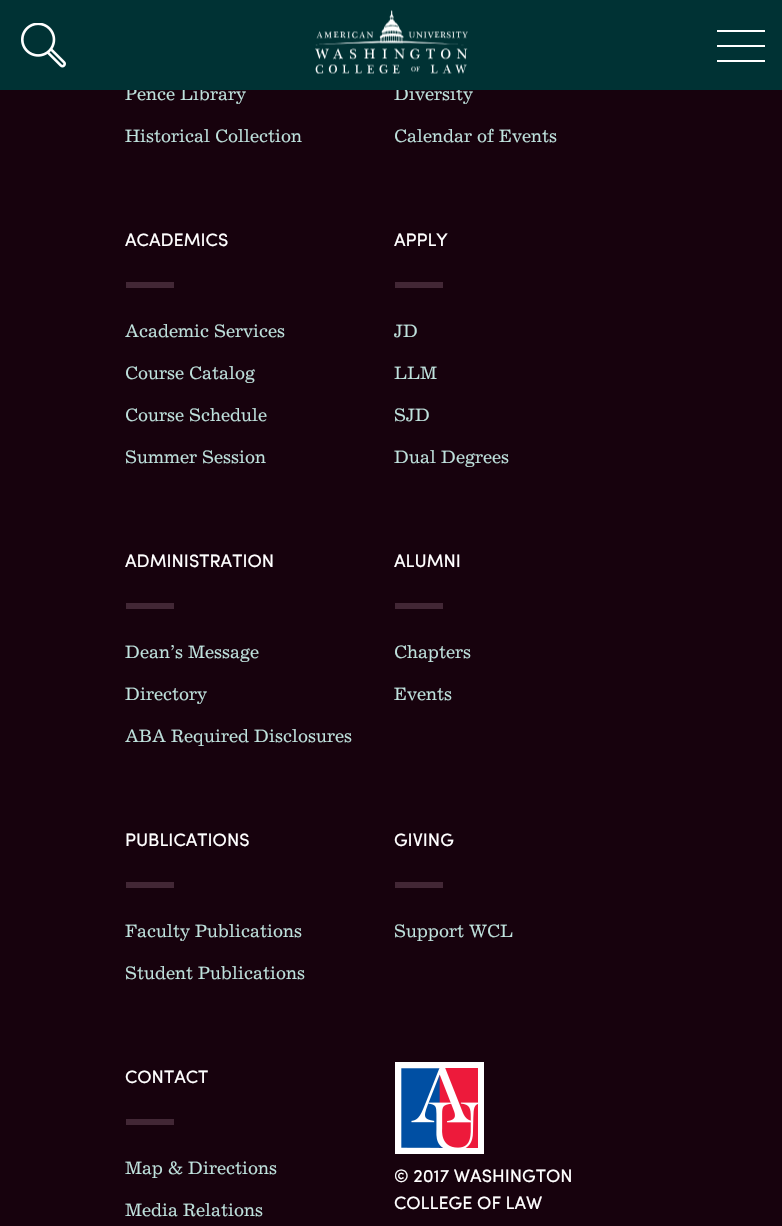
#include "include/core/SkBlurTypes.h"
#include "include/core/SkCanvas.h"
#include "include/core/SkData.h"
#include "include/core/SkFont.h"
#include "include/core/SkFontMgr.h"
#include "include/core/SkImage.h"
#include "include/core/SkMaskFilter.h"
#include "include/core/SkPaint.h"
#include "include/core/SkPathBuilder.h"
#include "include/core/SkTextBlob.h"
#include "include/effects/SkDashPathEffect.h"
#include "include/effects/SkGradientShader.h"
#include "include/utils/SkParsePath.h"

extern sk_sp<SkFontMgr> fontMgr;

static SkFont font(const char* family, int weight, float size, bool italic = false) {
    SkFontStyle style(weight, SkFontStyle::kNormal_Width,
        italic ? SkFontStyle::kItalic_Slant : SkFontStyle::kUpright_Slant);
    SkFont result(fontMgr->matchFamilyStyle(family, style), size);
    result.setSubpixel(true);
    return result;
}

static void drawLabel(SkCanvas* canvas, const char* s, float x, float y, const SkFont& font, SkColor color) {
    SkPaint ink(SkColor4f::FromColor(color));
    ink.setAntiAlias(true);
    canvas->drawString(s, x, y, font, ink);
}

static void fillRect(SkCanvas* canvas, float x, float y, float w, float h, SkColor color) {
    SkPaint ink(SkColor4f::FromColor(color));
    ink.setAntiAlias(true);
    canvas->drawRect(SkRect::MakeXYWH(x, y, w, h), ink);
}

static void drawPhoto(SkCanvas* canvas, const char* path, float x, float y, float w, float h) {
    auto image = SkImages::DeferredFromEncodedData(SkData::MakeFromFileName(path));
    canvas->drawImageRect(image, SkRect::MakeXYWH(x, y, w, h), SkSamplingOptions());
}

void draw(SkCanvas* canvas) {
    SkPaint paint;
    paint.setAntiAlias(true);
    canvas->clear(0xFF17020D);
    SkFont font1 = font("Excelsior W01", 400, 18);
    drawLabel(canvas, "Pence Library", 125, 100, font1, 0xFFBFE2DD);
    drawLabel(canvas, "Diversity", 394, 100, font1, 0xFFBFE2DD);
    fillRect(canvas, 0, 0, 782, 90, 0xFF003234);
    drawPhoto(canvas, "assets/img1.png", 315, 10, 153, 64);
    drawPhoto(canvas, "assets/img2.png", 21, 23, 45, 45);
    fillRect(canvas, 717, 45, 48, 2, 0xFFFFFFFF);
    fillRect(canvas, 717, 30, 48, 2, 0xFFFFFFFF);
    fillRect(canvas, 717, 60, 48, 2, 0xFFFFFFFF);
    drawLabel(canvas, "Historical Collection", 125, 142, font1, 0xFFBFE2DD);
    drawLabel(canvas, "Calendar of Events", 394, 142, font1, 0xFFBFE2DD);
    SkFont font2 = font("Sofia", 400, 18);
    drawLabel(canvas, "ACADEMICS", 125, 246, font2, 0xFFFFFFFF);
    fillRect(canvas, 126, 282, 48, 6, 0xFF422735);
    drawLabel(canvas, "Academic Services", 125, 337, font1, 0xFFBFE2DD);
    drawLabel(canvas, "Course Catalog", 125, 379, font1, 0xFFBFE2DD);
    drawLabel(canvas, "Course Schedule", 125, 421, font1, 0xFFBFE2DD);
    drawLabel(canvas, "Summer Session", 125, 463, font1, 0xFFBFE2DD);
    drawLabel(canvas, "APPLY", 394, 246, font2, 0xFFFFFFFF);
    fillRect(canvas, 395, 282, 48, 6, 0xFF422735);
    drawLabel(canvas, "JD", 394, 337, font1, 0xFFBFE2DD);
    drawLabel(canvas, "LLM", 394, 379, font1, 0xFFBFE2DD);
    drawLabel(canvas, "SJD", 394, 421, font1, 0xFFBFE2DD);
    drawLabel(canvas, "Dual Degrees", 394, 463, font1, 0xFFBFE2DD);
    drawLabel(canvas, "ADMINISTRATION", 125, 567, font2, 0xFFFFFFFF);
    fillRect(canvas, 126, 603, 48, 6, 0xFF422735);
    drawLabel(canvas, "Dean’s Message", 125, 658, font1, 0xFFBFE2DD);
    drawLabel(canvas, "Directory", 125, 700, font1, 0xFFBFE2DD);
    drawLabel(canvas, "ABA Required Disclosures", 125, 742, font1, 0xFFBFE2DD);
    drawLabel(canvas, "ALUMNI", 394, 567, font2, 0xFFFFFFFF);
    fillRect(canvas, 395, 603, 48, 6, 0xFF422735);
    drawLabel(canvas, "Chapters", 394, 658, font1, 0xFFBFE2DD);
    drawLabel(canvas, "Events", 394, 700, font1, 0xFFBFE2DD);
    drawLabel(canvas, "PUBLICATIONS", 125, 846, font2, 0xFFFFFFFF);
    fillRect(canvas, 126, 882, 48, 6, 0xFF422735);
    drawLabel(canvas, "Faculty Publications", 125, 937, font1, 0xFFBFE2DD);
    drawLabel(canvas, "Student Publications", 125, 979, font1, 0xFFBFE2DD);
    drawLabel(canvas, "GIVING", 394, 846, font2, 0xFFFFFFFF);
    fillRect(canvas, 395, 882, 48, 6, 0xFF422735);
    drawLabel(canvas, "Support WCL", 394, 937, font1, 0xFFBFE2DD);
    drawLabel(canvas, "CONTACT", 125, 1083, font2, 0xFFFFFFFF);
    fillRect(canvas, 126, 1119, 48, 6, 0xFF422735);
    drawLabel(canvas, "Map & Directions", 125, 1174, font1, 0xFFBFE2DD);
    drawLabel(canvas, "Media Relations", 125, 1216, font1, 0xFFBFE2DD);
    drawPhoto(canvas, "assets/img3.png", 395, 1062, 89, 92);
    drawLabel(canvas, "© 2017 WASHINGTON", 394, 1182, font2, 0xFFFFFFFF);
    drawLabel(canvas, "COLLEGE OF LAW", 394, 1209, font2, 0xFFFFFFFF);
}
